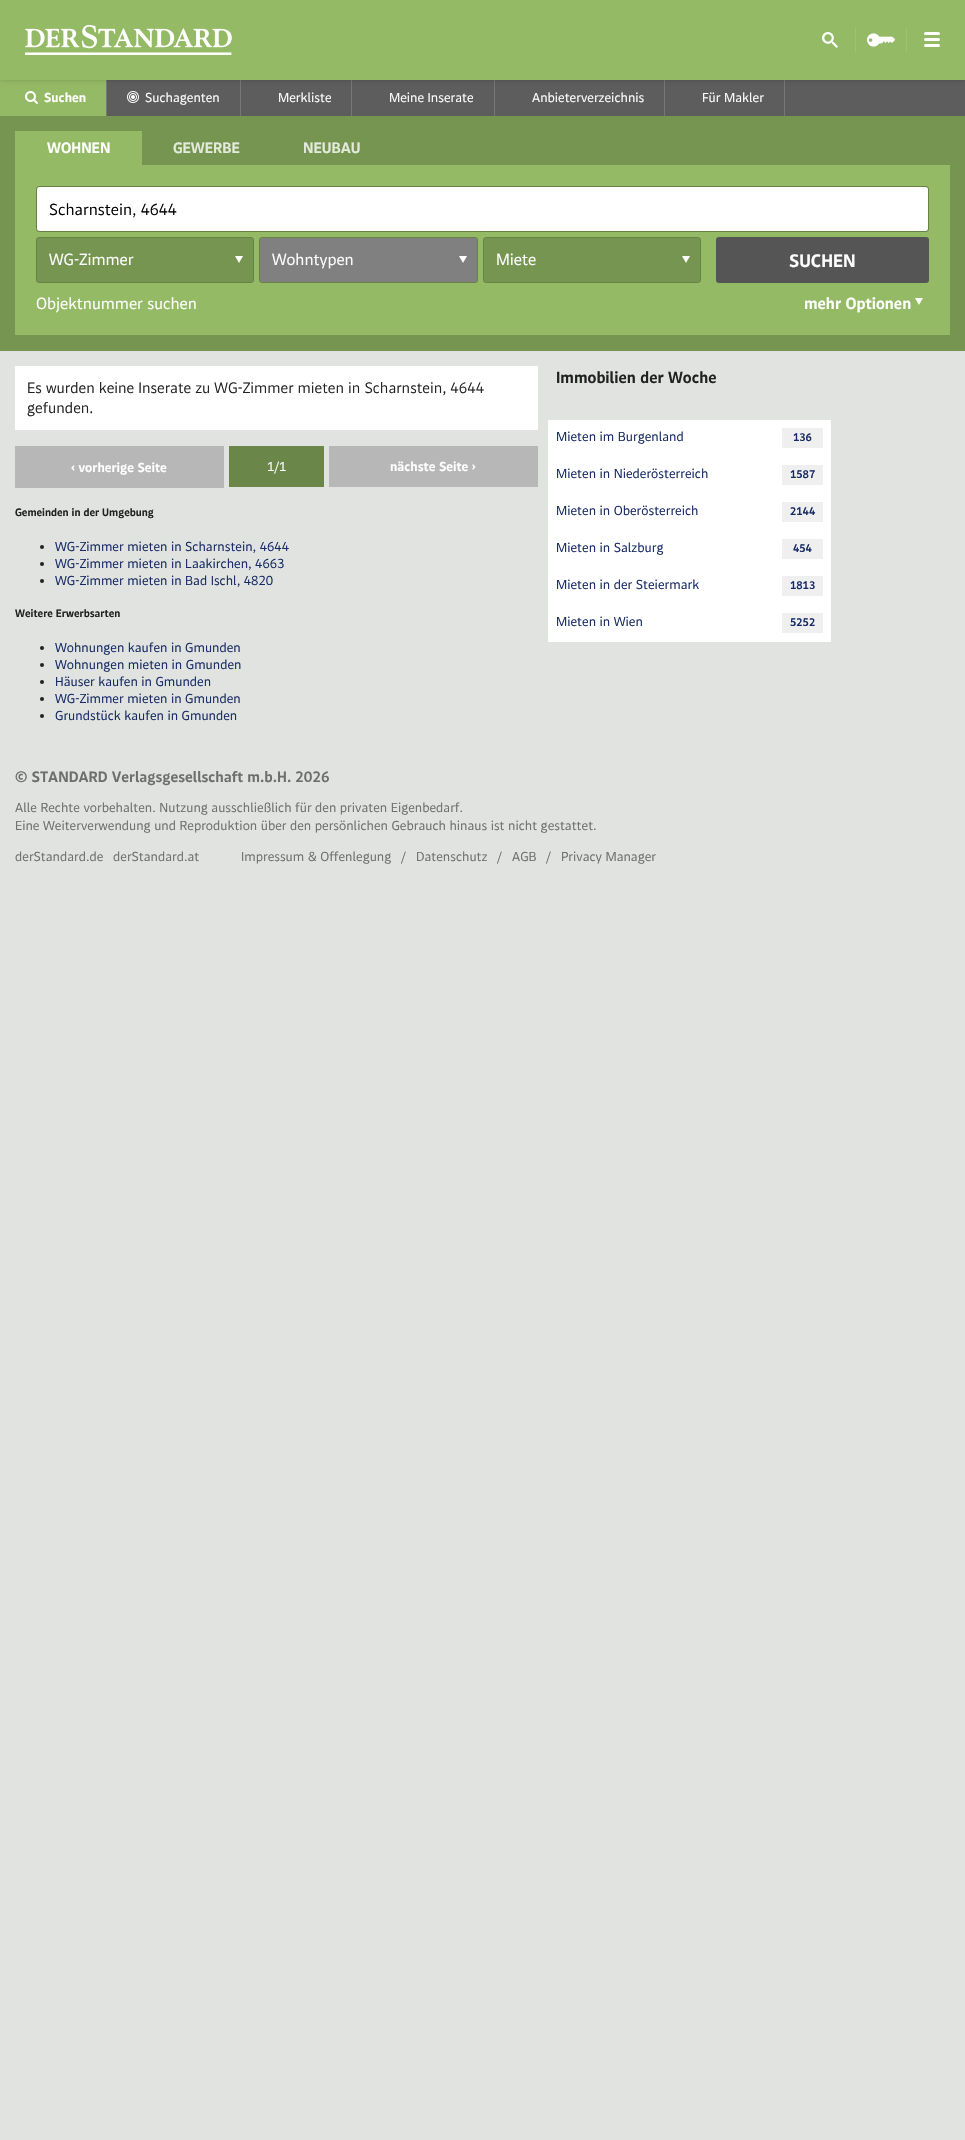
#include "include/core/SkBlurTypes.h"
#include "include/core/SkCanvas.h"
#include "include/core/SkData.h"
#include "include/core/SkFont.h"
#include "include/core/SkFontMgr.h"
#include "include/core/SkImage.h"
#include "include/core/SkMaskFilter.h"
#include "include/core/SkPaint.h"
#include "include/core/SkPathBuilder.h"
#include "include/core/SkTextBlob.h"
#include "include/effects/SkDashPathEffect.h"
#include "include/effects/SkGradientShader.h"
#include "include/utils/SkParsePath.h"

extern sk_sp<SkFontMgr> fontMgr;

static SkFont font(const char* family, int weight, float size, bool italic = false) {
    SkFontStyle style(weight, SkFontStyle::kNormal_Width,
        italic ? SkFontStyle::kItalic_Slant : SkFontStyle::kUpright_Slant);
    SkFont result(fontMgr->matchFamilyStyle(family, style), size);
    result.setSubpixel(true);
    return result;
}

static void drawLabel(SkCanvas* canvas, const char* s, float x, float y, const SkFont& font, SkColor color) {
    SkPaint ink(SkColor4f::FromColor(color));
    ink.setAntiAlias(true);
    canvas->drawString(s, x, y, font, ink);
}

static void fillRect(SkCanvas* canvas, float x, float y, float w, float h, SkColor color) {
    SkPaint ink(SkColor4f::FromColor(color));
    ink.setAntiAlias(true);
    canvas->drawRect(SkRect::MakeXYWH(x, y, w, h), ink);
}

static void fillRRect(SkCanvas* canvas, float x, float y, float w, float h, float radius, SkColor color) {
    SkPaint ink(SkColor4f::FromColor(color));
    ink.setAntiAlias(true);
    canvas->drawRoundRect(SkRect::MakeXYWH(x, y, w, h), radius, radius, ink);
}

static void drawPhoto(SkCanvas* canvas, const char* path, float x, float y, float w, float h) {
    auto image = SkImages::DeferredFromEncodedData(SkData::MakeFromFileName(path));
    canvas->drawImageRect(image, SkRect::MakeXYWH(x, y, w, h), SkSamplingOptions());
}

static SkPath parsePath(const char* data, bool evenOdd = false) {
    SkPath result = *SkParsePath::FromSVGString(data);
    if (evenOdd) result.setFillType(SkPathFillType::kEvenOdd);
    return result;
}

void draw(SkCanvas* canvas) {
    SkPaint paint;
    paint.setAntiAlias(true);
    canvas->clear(0xFFE0E3E0);
    fillRect(canvas, 107, 80, 858, 36, 0xFF5D5D5D);
    fillRect(canvas, 0, 80, 106, 36, 0xFF94BA65);
    fillRect(canvas, 106, 80, 1, 36, 0xFF777777);
    fillRect(canvas, 240, 80, 1, 36, 0xFF777777);
    fillRect(canvas, 351, 80, 1, 36, 0xFF777777);
    fillRect(canvas, 494, 80, 1, 36, 0xFF777777);
    fillRect(canvas, 664, 80, 1, 36, 0xFF777777);
    fillRect(canvas, 784, 80, 1, 36, 0xFF777777);
    paint.setColor(0x0D000000);
    paint.setMaskFilter(SkMaskFilter::MakeBlur(kNormal_SkBlurStyle, 2.5f));
    canvas->drawRect(SkRect::MakeXYWH(0, 2, 965, 80), paint);
    paint.setMaskFilter(nullptr);
    paint.setColor(0x0F000000);
    paint.setMaskFilter(SkMaskFilter::MakeBlur(kNormal_SkBlurStyle, 1));
    canvas->drawRect(SkRect::MakeXYWH(0, 1, 965, 80), paint);
    paint.setMaskFilter(nullptr);
    fillRect(canvas, 0, 0, 965, 80, 0xFF94BA65);
    drawPhoto(canvas, "assets/img1.png", 25, 25, 207, 30);
    drawPhoto(canvas, "assets/img2.png", 822, 32, 16, 16);
    fillRect(canvas, 855, 27, 1, 26, 0xFF9FC174);
    drawPhoto(canvas, "assets/img3.png", 867, 33, 28, 14);
    fillRect(canvas, 906, 27, 1, 26, 0xFF9FC174);
    fillRRect(canvas, 924, 32, 16, 3, 1.5f, 0xFFFFFFFF);
    fillRRect(canvas, 924, 38, 16, 3, 1.5f, 0xFFFFFFFF);
    fillRRect(canvas, 924, 44, 16, 3, 1.5f, 0xFFFFFFFF);
    drawPhoto(canvas, "assets/img4.png", 25, 91, 13, 13);
    SkFont font1 = font("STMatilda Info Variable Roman", 700, 13);
    drawLabel(canvas, "Suchen", 44, 102, font1, 0xFFFFFFFF);
    drawPhoto(canvas, "assets/img5.png", 127, 91, 12, 12);
    SkFont font2 = font("STMatilda Info Variable Roman", 400, 13);
    drawLabel(canvas, "Suchagenten", 145, 102, font2, 0xFFFFFFFF);
    drawLabel(canvas, "Merkliste", 278, 102, font2, 0xFFFFFFFF);
    drawLabel(canvas, "Meine Inserate", 389, 102, font2, 0xFFFFFFFF);
    drawLabel(canvas, "Anbieterverzeichnis", 532, 102, font2, 0xFFFFFFFF);
    drawLabel(canvas, "Für Makler", 702, 102, font2, 0xFFFFFFFF);
    fillRect(canvas, 0, 116, 965, 235, 0xFF769551);
    fillRect(canvas, 15, 131, 127, 34, 0xFF94BA65);
    SkFont font3 = font("STMatilda Info Variable Roman", 700, 15);
    drawLabel(canvas, "WOHNEN", 47, 153, font3, 0xFFFFFFFF);
    drawLabel(canvas, "GEWERBE", 173, 153, font3, 0xFFE4EADC);
    drawLabel(canvas, "NEUBAU", 303, 153, font3, 0xFFE4EADC);
    fillRect(canvas, 15, 165, 935, 170, 0xFF94BA65);
    paint.setStroke(true);
    paint.setStrokeWidth(1);
    paint.setColor(0xFF678247);
    canvas->drawRoundRect(SkRect::MakeXYWH(36.5f, 186.5f, 892, 45), 2.5f, 2.5f, paint);
    fillRRect(canvas, 37, 187, 891, 44, 3, 0xFFFFFFFF);
    SkFont font4 = font("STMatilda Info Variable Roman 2", 400, 16);
    drawLabel(canvas, "Scharnstein, 4644", 49, 215, font4, 0xFF000000);
    paint.setStroke(false);
    paint.setColor(0xFF769551);
    canvas->drawRoundRect(SkRect::MakeXYWH(36.5f, 237.5f, 217, 45), 2.5f, 2.5f, paint);
    paint.setStroke(true);
    paint.setColor(0xFF678247);
    canvas->drawRoundRect(SkRect::MakeXYWH(36.5f, 237.5f, 217, 45), 2.5f, 2.5f, paint);
    SkFont font5 = font("STMatilda Info Variable Roman", 400, 16);
    drawLabel(canvas, "WG-Zimmer", 49, 265, font5, 0xFFFFFFFF);
    paint.setStroke(false);
    paint.setColor(0xFFFFFFFF);
    canvas->drawPath(parsePath("M235 256H243L239 263Z"), paint);
    paint.setColor(0xFF808080);
    canvas->drawRoundRect(SkRect::MakeXYWH(259.5f, 237.5f, 218, 45), 2.5f, 2.5f, paint);
    paint.setStroke(true);
    paint.setColor(0xFF678247);
    canvas->drawRoundRect(SkRect::MakeXYWH(259.5f, 237.5f, 218, 45), 2.5f, 2.5f, paint);
    drawLabel(canvas, "Wohntypen", 272, 265, font5, 0xFFFFFFFF);
    paint.setStroke(false);
    paint.setColor(0xFFFFFFFF);
    canvas->drawPath(parsePath("M459 256H467L463 263Z"), paint);
    paint.setColor(0xFF769551);
    canvas->drawRoundRect(SkRect::MakeXYWH(483.5f, 237.5f, 217, 45), 2.5f, 2.5f, paint);
    paint.setStroke(true);
    paint.setColor(0xFF678247);
    canvas->drawRoundRect(SkRect::MakeXYWH(483.5f, 237.5f, 217, 45), 2.5f, 2.5f, paint);
    drawLabel(canvas, "Miete", 496, 265, font5, 0xFFFFFFFF);
    paint.setStroke(false);
    paint.setColor(0xFFFFFFFF);
    canvas->drawPath(parsePath("M682 256H690L686 263Z"), paint);
    fillRRect(canvas, 716, 237, 213, 46, 3, 0xFF555555);
    SkFont font6 = font("STMatilda Info Variable Roman", 700, 18);
    drawLabel(canvas, "SUCHEN", 789, 267, font6, 0xFFFFFFFF);
    drawLabel(canvas, "Objektnummer suchen", 36, 309, font5, 0xFFFFFFFF);
    SkFont font7 = font("STMatilda Info Variable Roman", 700, 16);
    drawLabel(canvas, "mehr Optionen", 804, 309, font7, 0xFFFFFFFF);
    canvas->drawPath(parsePath("M915 298H923L919 305Z"), paint);
    fillRect(canvas, 15, 366, 523, 64, 0xFFFFFFFF);
    SkFont font8 = font("STMatilda Info Variable Roman 2", 400, 15);
    drawLabel(canvas, "Es wurden keine Inserate zu WG-Zimmer mieten in Scharnstein, 4644", 27, 393, font8, 0xFF212121);
    drawLabel(canvas, "gefunden.", 27, 413, font8, 0xFF212121);
    fillRect(canvas, 15, 446, 209, 42, 0xFFB7B7B7);
    drawLabel(canvas, "‹ vorherige Seite", 71, 472, font1, 0xFFFFFFFF);
    fillRect(canvas, 229, 446, 95, 41, 0xFF6A8649);
    drawLabel(canvas, "1/1", 267, 471, font2, 0xFFFFFFFF);
    fillRect(canvas, 329, 446, 209, 41, 0xFFB7B7B7);
    drawLabel(canvas, "nächste Seite ›", 390, 471, font1, 0xFFFFFFFF);
    SkFont font9 = font("STMatilda Info Variable Roman", 700, 10.75f);
    drawLabel(canvas, "Gemeinden in der Umgebung", 15, 516, font9, 0xFF212121);
    paint.setColor(0xFF212121);
    canvas->drawCircle(42, 547, 2, paint);
    drawLabel(canvas, "WG-Zimmer mieten in Scharnstein, 4644", 55, 551, font2, 0xFF162964);
    canvas->drawCircle(42, 564, 2, paint);
    drawLabel(canvas, "WG-Zimmer mieten in Laakirchen, 4663", 55, 568, font2, 0xFF162964);
    canvas->drawCircle(42, 581, 2, paint);
    drawLabel(canvas, "WG-Zimmer mieten in Bad Ischl, 4820", 55, 585, font2, 0xFF162964);
    drawLabel(canvas, "Weitere Erwerbsarten", 15, 617, font9, 0xFF212121);
    canvas->drawCircle(42, 648, 2, paint);
    drawLabel(canvas, "Wohnungen kaufen in Gmunden", 55, 652, font2, 0xFF162964);
    canvas->drawCircle(42, 665, 2, paint);
    drawLabel(canvas, "Wohnungen mieten in Gmunden", 55, 669, font2, 0xFF162964);
    canvas->drawCircle(42, 682, 2, paint);
    drawLabel(canvas, "Häuser kaufen in Gmunden", 55, 686, font2, 0xFF162964);
    canvas->drawCircle(42, 699, 2, paint);
    drawLabel(canvas, "WG-Zimmer mieten in Gmunden", 55, 703, font2, 0xFF162964);
    canvas->drawCircle(42, 716, 2, paint);
    drawLabel(canvas, "Grundstück kaufen in Gmunden", 55, 720, font2, 0xFF162964);
    drawLabel(canvas, "Immobilien der Woche", 556, 383, font7, 0xFF212121);
    fillRect(canvas, 548, 420, 283, 222, 0xFFFFFFFF);
    drawLabel(canvas, "Mieten im Burgenland", 556, 441, font2, 0xFF162964);
    fillRect(canvas, 782, 428, 41, 20, 0xFFEFEFEF);
    SkFont font10 = font("STMatilda Info Variable Roman", 700, 11);
    drawLabel(canvas, "136", 793, 441, font10, 0xFF162964);
    drawLabel(canvas, "Mieten in Niederösterreich", 556, 478, font2, 0xFF162964);
    fillRect(canvas, 782, 465, 41, 20, 0xFFEFEFEF);
    drawLabel(canvas, "1587", 790, 478, font10, 0xFF162964);
    drawLabel(canvas, "Mieten in Oberösterreich", 556, 515, font2, 0xFF162964);
    fillRect(canvas, 782, 502, 41, 20, 0xFFEFEFEF);
    drawLabel(canvas, "2144", 790, 515, font10, 0xFF162964);
    drawLabel(canvas, "Mieten in Salzburg", 556, 552, font2, 0xFF162964);
    fillRect(canvas, 782, 539, 41, 20, 0xFFEFEFEF);
    drawLabel(canvas, "454", 793, 552, font10, 0xFF162964);
    drawLabel(canvas, "Mieten in der Steiermark", 556, 589, font2, 0xFF162964);
    fillRect(canvas, 782, 576, 41, 20, 0xFFEFEFEF);
    drawLabel(canvas, "1813", 790, 589, font10, 0xFF162964);
    drawLabel(canvas, "Mieten in Wien", 556, 626, font2, 0xFF162964);
    fillRect(canvas, 782, 613, 41, 20, 0xFFEFEFEF);
    drawLabel(canvas, "5252", 790, 626, font10, 0xFF162964);
    drawLabel(canvas, "© STANDARD Verlagsgesellschaft m.b.H. 2026", 15, 782, font3, 0xFF6D6F6D);
    drawLabel(canvas, "Alle Rechte vorbehalten. Nutzung ausschließlich für den privaten Eigenbedarf.", 15, 812, font2, 0xFF6D6F6D);
    drawLabel(canvas, "Eine Weiterverwendung und Reproduktion über den persönlichen Gebrauch hinaus ist nicht gestattet.", 15, 830, font2, 0xFF6D6F6D);
    drawLabel(canvas, "derStandard.de", 15, 861, font2, 0xFF6D6F6D);
    drawLabel(canvas, "derStandard.at", 113, 861, font2, 0xFF6D6F6D);
    drawLabel(canvas, "Impressum & Offenlegung", 241, 861, font2, 0xFF6D6F6D);
    drawLabel(canvas, "/", 401, 861, font2, 0xFF6D6F6D);
    drawLabel(canvas, "Datenschutz", 416, 861, font2, 0xFF6D6F6D);
    drawLabel(canvas, "/", 497, 861, font2, 0xFF6D6F6D);
    drawLabel(canvas, "AGB", 512, 861, font2, 0xFF6D6F6D);
    drawLabel(canvas, "/", 546, 861, font2, 0xFF6D6F6D);
    drawLabel(canvas, "Privacy Manager", 561, 861, font2, 0xFF6D6F6D);
}
